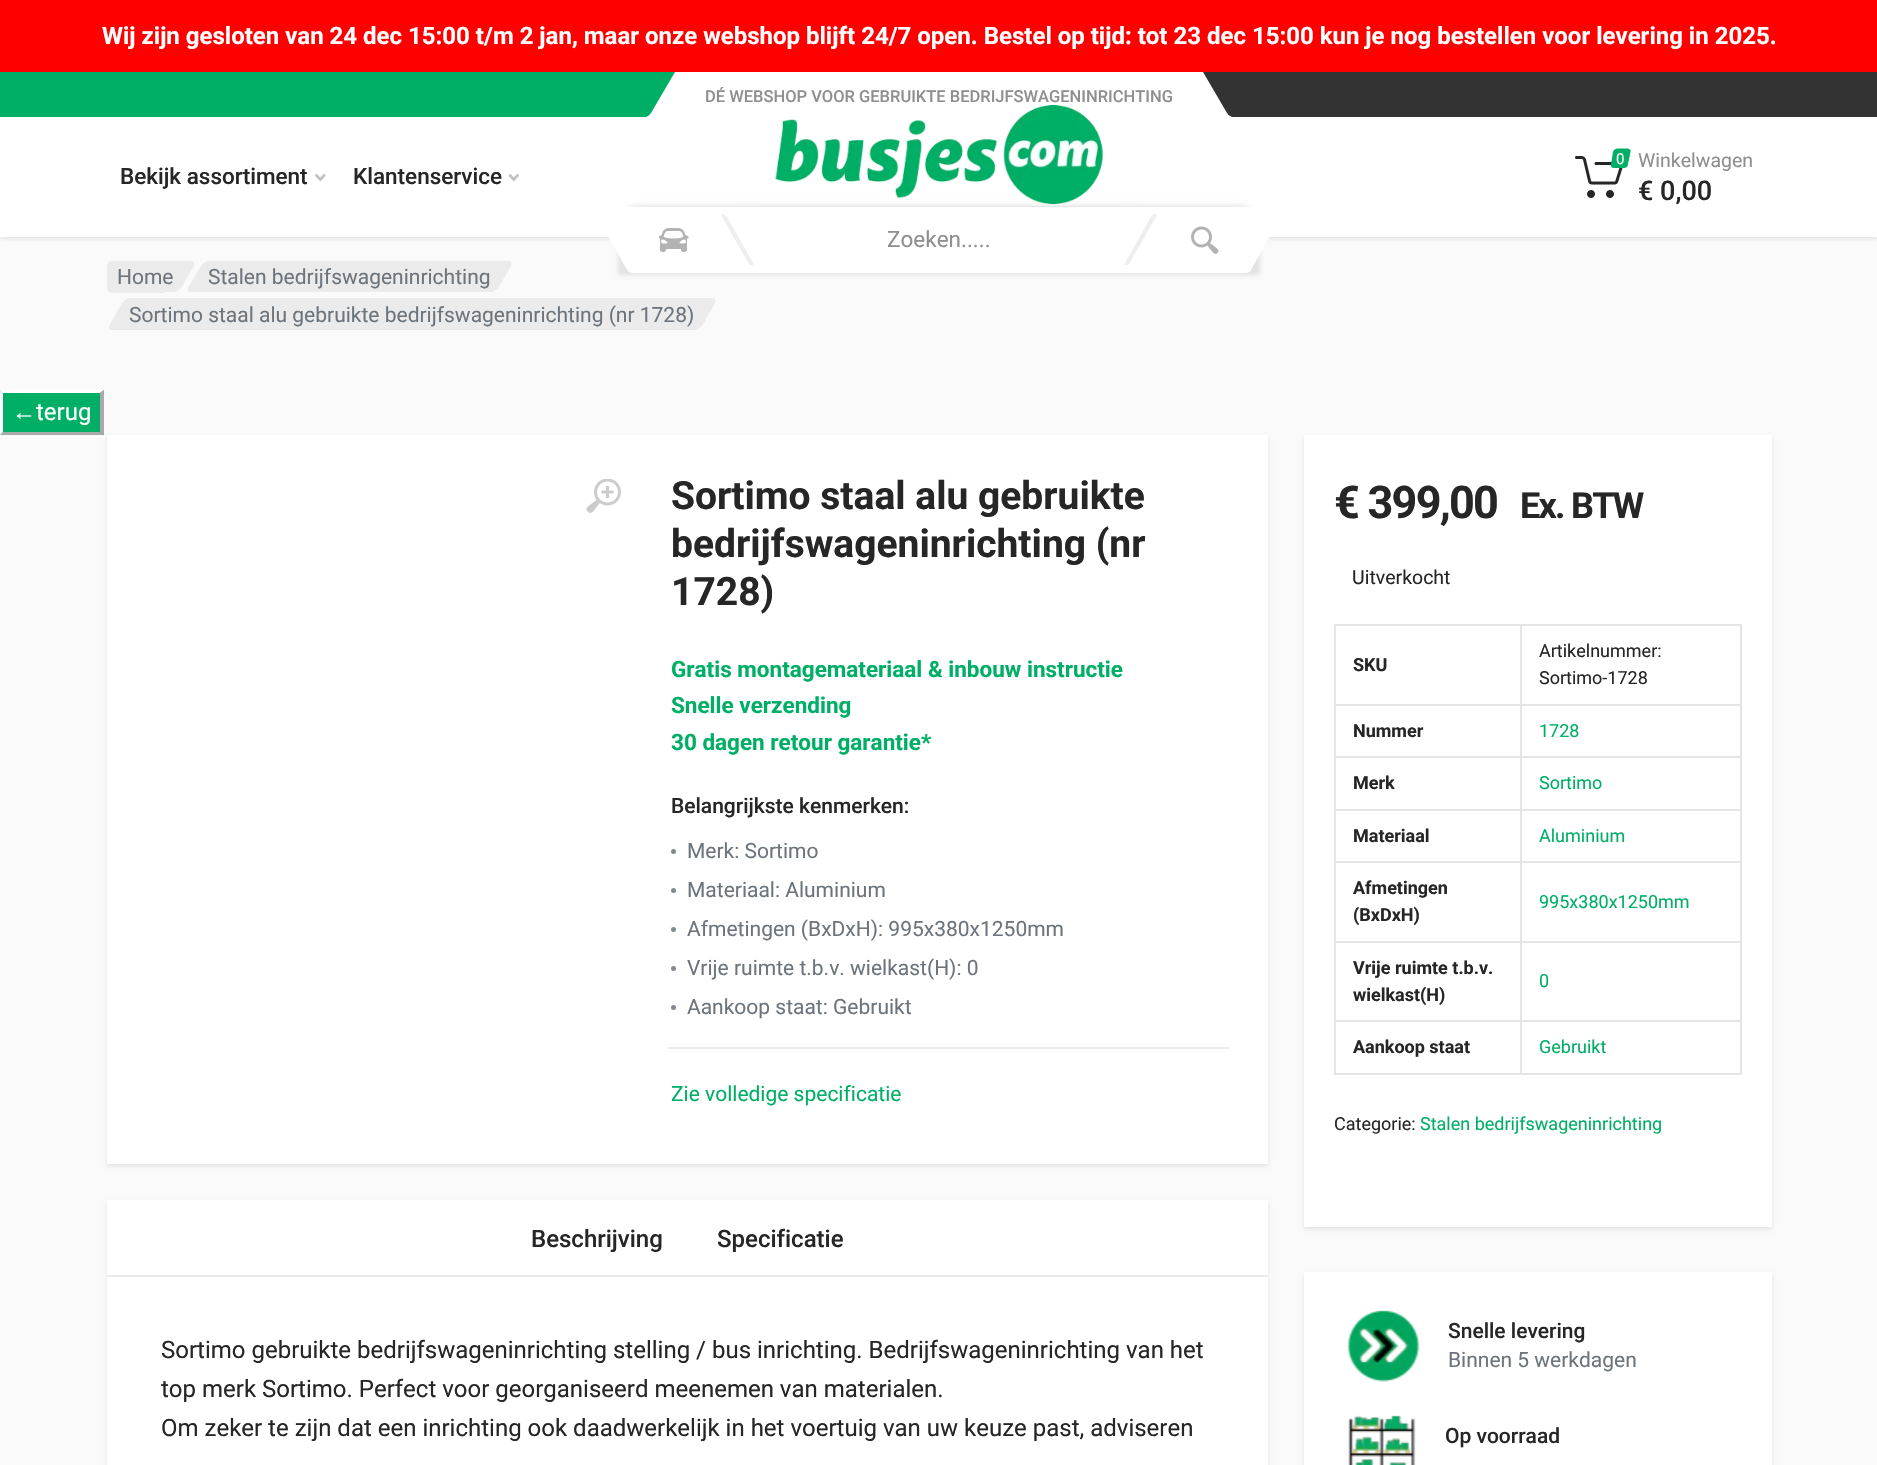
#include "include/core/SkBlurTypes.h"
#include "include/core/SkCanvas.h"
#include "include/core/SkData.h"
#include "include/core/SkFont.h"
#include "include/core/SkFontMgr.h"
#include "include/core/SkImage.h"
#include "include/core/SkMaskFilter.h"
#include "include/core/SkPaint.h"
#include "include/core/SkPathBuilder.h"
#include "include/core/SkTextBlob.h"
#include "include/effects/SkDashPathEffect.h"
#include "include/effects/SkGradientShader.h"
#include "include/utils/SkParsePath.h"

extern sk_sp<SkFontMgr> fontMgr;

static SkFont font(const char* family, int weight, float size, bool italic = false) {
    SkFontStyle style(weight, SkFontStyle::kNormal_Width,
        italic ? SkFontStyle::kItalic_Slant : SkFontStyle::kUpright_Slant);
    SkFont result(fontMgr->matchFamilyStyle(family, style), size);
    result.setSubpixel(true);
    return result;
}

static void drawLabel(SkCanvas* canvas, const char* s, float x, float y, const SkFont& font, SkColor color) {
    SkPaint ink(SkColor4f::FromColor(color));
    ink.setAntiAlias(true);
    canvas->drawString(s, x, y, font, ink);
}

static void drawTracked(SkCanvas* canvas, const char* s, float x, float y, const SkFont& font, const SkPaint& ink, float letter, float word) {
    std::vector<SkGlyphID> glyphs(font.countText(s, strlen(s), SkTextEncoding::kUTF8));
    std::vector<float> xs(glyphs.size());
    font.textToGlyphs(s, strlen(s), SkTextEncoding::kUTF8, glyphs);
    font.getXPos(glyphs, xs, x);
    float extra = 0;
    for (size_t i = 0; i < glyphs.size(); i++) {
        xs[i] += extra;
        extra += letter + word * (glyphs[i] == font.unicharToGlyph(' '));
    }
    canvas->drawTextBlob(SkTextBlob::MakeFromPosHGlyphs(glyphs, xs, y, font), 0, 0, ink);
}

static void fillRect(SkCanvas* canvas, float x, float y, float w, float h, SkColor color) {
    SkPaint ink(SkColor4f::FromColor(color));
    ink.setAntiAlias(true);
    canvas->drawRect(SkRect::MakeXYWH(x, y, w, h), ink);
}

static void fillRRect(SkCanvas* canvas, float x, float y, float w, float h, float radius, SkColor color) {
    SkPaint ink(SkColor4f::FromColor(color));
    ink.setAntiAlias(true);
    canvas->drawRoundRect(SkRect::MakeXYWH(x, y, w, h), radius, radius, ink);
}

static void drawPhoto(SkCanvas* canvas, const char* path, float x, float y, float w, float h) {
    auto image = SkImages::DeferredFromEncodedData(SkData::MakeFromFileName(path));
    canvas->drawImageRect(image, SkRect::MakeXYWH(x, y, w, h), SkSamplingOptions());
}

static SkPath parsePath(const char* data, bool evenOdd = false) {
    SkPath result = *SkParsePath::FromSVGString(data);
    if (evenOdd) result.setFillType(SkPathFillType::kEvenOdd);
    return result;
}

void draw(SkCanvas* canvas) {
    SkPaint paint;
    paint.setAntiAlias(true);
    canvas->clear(0xFFFAFAFA);
    fillRect(canvas, 0, 0, 1877, 72, 0xFFFF0000);
    SkFont font1 = font("Roboto", 700, 24);
    drawLabel(canvas, "Wij zijn gesloten van 24 dec 15:00 t/m 2 jan, maar onze webshop blijft 24/7 open. Bestel op tijd: tot 23 dec 15:00 kun je nog bestellen voor levering in 2025.", 102, 44, font1, 0xFFFFFFFF);
    paint.setColor(0x17000000);
    paint.setMaskFilter(SkMaskFilter::MakeBlur(kNormal_SkBlurStyle, 2));
    canvas->drawRect(SkRect::MakeXYWH(0, 74, 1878, 165), paint);
    paint.setMaskFilter(nullptr);
    fillRect(canvas, 0, 72, 1877, 165, 0xFFFFFFFF);
    paint.setColor(0xFF00AF66);
    canvas->drawPath(parsePath("M0 72H675L651 113C650 115 647 117 645 117H-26Z"), paint);
    SkFont font2 = font("Roboto", 500, 16.5f);
    drawLabel(canvas, "DÉ WEBSHOP VOOR GEBRUIKTE BEDRIJFSWAGENINRICHTING", 705, 102, font2, 0xFF8F8F8F);
    drawPhoto(canvas, "assets/img1.png", 775, 105, 328, 99);
    paint.setColor(0xFF333333);
    canvas->drawPath(parsePath("M1203 72H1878L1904 117H1233C1231 117 1228 115 1227 113Z"), paint);
    SkFont font3 = font("Roboto", 500, 22.5f);
    drawLabel(canvas, "Bekijk assortiment", 120, 184, font3, 0xFF262626);
    drawPhoto(canvas, "assets/img2.png", 315, 174, 11, 8);
    drawLabel(canvas, "Klantenservice", 353, 184, font3, 0xFF262626);
    drawPhoto(canvas, "assets/img3.png", 509, 174, 10, 8);
    drawPhoto(canvas, "assets/img4.png", 1575, 156, 48, 42);
    paint.setColor(0xFF00AF66);
    canvas->drawPath(parsePath("M1617.5 148.5H1627.5C1629.5 148.5 1631 150 1630.5 152L1628 164C1628 166.5 1626 168 1624 168H1614C1611.5 168 1610.5 166.5 1611 164L1613 152C1613.5 150 1615.5 148.5 1617.5 148.5Z"), paint);
    SkFont font4 = font("Roboto", 400, 15);
    drawLabel(canvas, "0", 1616, 164, font4, 0xFFFFFFFF);
    SkFont font5 = font("Roboto", 400, 19.5f);
    drawLabel(canvas, "Winkelwagen", 1638, 167, font5, 0xFF8F8F8F);
    SkFont font6 = font("Roboto", 500, 27);
    drawLabel(canvas, "€ 0,00", 1638, 200, font6, 0xFF262626);
    canvas->save();
    canvas->clipRect(SkRect::MakeXYWH(624, 192, 630, 15));
    paint.setColor(0xFFFAFAFA);
    canvas->drawPath(parsePath("M804 206C705 206 624 212 624 220V222C624 214 705 207 804 207H1074C1173 207 1254 214 1254 222V220C1254 212 1173 206 1074 206Z"), paint);
    canvas->restore();
    canvas->save();
    canvas->clipRect(SkRect::MakeXYWH(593, 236, 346, 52));
    paint.setColor(0x17000000);
    paint.setMaskFilter(SkMaskFilter::MakeBlur(kNormal_SkBlurStyle, 2));
    canvas->drawRoundRect(SkRect::MakeXYWH(618, 237, 347, 38), 3, 3, paint);
    paint.setMaskFilter(nullptr);
    canvas->restore();
    paint.setColor(0xFFFFFFFF);
    canvas->drawPath(parsePath("M608 236H954L976 273H632L629 272L627 270Z"), paint);
    canvas->save();
    canvas->clipRect(SkRect::MakeXYWH(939, 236, 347, 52));
    paint.setColor(0x17000000);
    paint.setMaskFilter(SkMaskFilter::MakeBlur(kNormal_SkBlurStyle, 2));
    canvas->drawRoundRect(SkRect::MakeXYWH(914, 237, 346, 38), 3, 3, paint);
    paint.setMaskFilter(nullptr);
    canvas->restore();
    canvas->save();
    canvas->clipRect(SkRect::MakeXYWH(939, 236, 347, 52));
    paint.setColor(0xFFFFFFFF);
    canvas->drawPath(parsePath("M924 236H1270L1251 270C1250 272 1248 273 1246 273H902Z"), paint);
    canvas->restore();
    paint.setColor(0xFFEBEBEB);
    canvas->drawPath(parsePath("M129 298H713C715 298 716 301 715 303L702 326C700 328 697 330 694 330H111C109 330 108 328 109 326L122 303C124 301 127 298 129 298Z"), paint);
    canvas->save();
    canvas->clipRect(SkRect::MakeXYWH(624, 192, 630, 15));
    paint.setColor(0x1F000000);
    paint.setMaskFilter(SkMaskFilter::MakeBlur(kNormal_SkBlurStyle, 3));
    canvas->drawRoundRect(SkRect::MakeXYWH(624, 206, 630, 90), 15, 15, paint);
    paint.setMaskFilter(nullptr);
    canvas->restore();
    drawPhoto(canvas, "assets/img5.png", 659, 228, 30, 24);
    paint.setColor(0xFFEEEEEE);
    canvas->drawPath(parsePath("M723 214C727 214 730 223 731 224L753 263C755 267 750 265 749 264L722 217C721 216 721 214 723 214Z"), paint);
    canvas->drawPath(parsePath("M1155 214C1157 214 1157 216 1156 217L1129 264C1128 265 1123 267 1125 263L1147 224C1148 223 1151 214 1155 214Z"), paint);
    drawPhoto(canvas, "assets/img6.png", 1191, 226, 28, 28);
    SkFont font7 = font("Roboto", 400, 22.5f);
    drawLabel(canvas, "Zoeken.....", 887, 247, font7, 0xFF8F8F8F);
    paint.setColor(0xFFEBEBEB);
    canvas->drawPath(parsePath("M129 261H192C194 261 195 263 194 266L181 288C179 290 176 292 174 292H111C109 292 108 290 109 288L122 266C124 263 127 261 129 261Z"), paint);
    fillRRect(canvas, 107, 261, 60, 32, 5, 0xFFEBEBEB);
    SkFont font8 = font("Roboto", 400, 21);
    drawLabel(canvas, "Home", 117, 284, font8, 0xFF6C757D);
    canvas->drawPath(parsePath("M208 261H509C511 261 512 263 511 266L498 288C496 290 493 292 491 292H190C188 292 187 290 188 288L201 266C203 263 206 261 208 261Z"), paint);
    drawLabel(canvas, "Stalen bedrijfswageninrichting", 208, 284, font8, 0xFF6C757D);
    drawLabel(canvas, "Sortimo staal alu gebruikte bedrijfswageninrichting (nr 1728)", 129, 322, font8, 0xFF6C757D);
    fillRect(canvas, 0, 390, 104, 45, 0xFF00AF66);
    paint.setColor(0xFFFFFFFF);
    canvas->drawPath(parsePath("M0 390H104L100 393H3Z"), paint);
    paint.setColor(0xFFAAAAAA);
    canvas->drawPath(parsePath("M104 390V435L100 432V393Z"), paint);
    canvas->drawPath(parsePath("M104 435H0L3 432H100Z"), paint);
    paint.setColor(0xFFFFFFFF);
    canvas->drawPath(parsePath("M0 435V390L3 393V432Z"), paint);
    SkFont font9 = font("Liberation Serif", 400, 24);
    drawLabel(canvas, "←", 12, 420, font9, 0xFFFFFFFF);
    SkFont font10 = font("Roboto", 400, 24);
    drawLabel(canvas, "terug", 36, 420, font10, 0xFFFFFFFF);
    paint.setColor(0x17000000);
    paint.setMaskFilter(SkMaskFilter::MakeBlur(kNormal_SkBlurStyle, 2));
    canvas->drawRect(SkRect::MakeXYWH(107, 437, 1161, 729), paint);
    paint.setMaskFilter(nullptr);
    fillRect(canvas, 107, 435, 1161, 729, 0xFFFFFFFF);
    drawPhoto(canvas, "assets/img7.png", 586, 479, 35, 34);
    SkFont font11 = font("Roboto", 700, 39);
    drawLabel(canvas, "Sortimo staal alu gebruikte", 671, 509, font11, 0xFF262626);
    drawLabel(canvas, "bedrijfswageninrichting (nr", 671, 557, font11, 0xFF262626);
    drawLabel(canvas, "1728)", 671, 605, font11, 0xFF262626);
    paint.setMaskFilter(SkMaskFilter::MakeBlur(kNormal_SkBlurStyle, 2));
    canvas->drawRect(SkRect::MakeXYWH(1304, 437, 468, 792), paint);
    paint.setMaskFilter(nullptr);
    fillRect(canvas, 1304, 435, 468, 792, 0xFFFFFFFF);
    SkFont font12 = font("Roboto", 700, 45);
    paint.setColor(0xFF262626);
    drawTracked(canvas, "€ 399,00", 1334, 518, font12, paint, -1.75f, 0);
    SkFont font13 = font("Roboto", 700, 36);
    drawTracked(canvas, "Ex. BTW", 1520, 518, font13, paint, -1.75f, 0);
    drawLabel(canvas, "Uitverkocht", 1352, 584, font5, 0xFF262626);
    fillRect(canvas, 1520, 624, 222, 2, 0xFFE5E5E5);
    fillRect(canvas, 1520, 704, 222, 2, 0xFFE5E5E5);
    fillRect(canvas, 1520, 756, 222, 2, 0xFFE5E5E5);
    fillRect(canvas, 1520, 809, 222, 2, 0xFFE5E5E5);
    fillRect(canvas, 1520, 861, 222, 2, 0xFFE5E5E5);
    fillRect(canvas, 1520, 941, 222, 2, 0xFFE5E5E5);
    fillRect(canvas, 1520, 1020, 222, 2, 0xFFE5E5E5);
    fillRect(canvas, 1740, 1020, 2, 54, 0xFFE5E5E5);
    fillRect(canvas, 1520, 1073, 222, 2, 0xFFE5E5E5);
    fillRect(canvas, 1520, 1020, 2, 54, 0xFFE5E5E5);
    fillRect(canvas, 1334, 1020, 187, 2, 0xFFE5E5E5);
    fillRect(canvas, 1520, 941, 2, 81, 0xFFE5E5E5);
    fillRect(canvas, 1334, 941, 187, 2, 0xFFE5E5E5);
    fillRect(canvas, 1520, 861, 2, 81, 0xFFE5E5E5);
    fillRect(canvas, 1334, 861, 187, 2, 0xFFE5E5E5);
    fillRect(canvas, 1520, 809, 2, 54, 0xFFE5E5E5);
    fillRect(canvas, 1334, 809, 187, 2, 0xFFE5E5E5);
    fillRect(canvas, 1520, 756, 2, 54, 0xFFE5E5E5);
    fillRect(canvas, 1334, 756, 187, 2, 0xFFE5E5E5);
    fillRect(canvas, 1520, 704, 2, 54, 0xFFE5E5E5);
    fillRect(canvas, 1334, 704, 187, 2, 0xFFE5E5E5);
    fillRect(canvas, 1520, 624, 2, 81, 0xFFE5E5E5);
    fillRect(canvas, 1334, 624, 187, 2, 0xFFE5E5E5);
    fillRect(canvas, 1334, 1073, 187, 2, 0xFFE5E5E5);
    fillRect(canvas, 1334, 1020, 2, 54, 0xFFE5E5E5);
    fillRect(canvas, 1334, 941, 2, 81, 0xFFE5E5E5);
    fillRect(canvas, 1334, 861, 2, 81, 0xFFE5E5E5);
    fillRect(canvas, 1334, 809, 2, 54, 0xFFE5E5E5);
    fillRect(canvas, 1334, 756, 2, 54, 0xFFE5E5E5);
    fillRect(canvas, 1334, 704, 2, 54, 0xFFE5E5E5);
    fillRect(canvas, 1334, 624, 2, 81, 0xFFE5E5E5);
    SkFont font14 = font("Roboto", 700, 18);
    drawLabel(canvas, "SKU", 1353, 671, font14, 0xFF262626);
    fillRect(canvas, 1740, 941, 2, 81, 0xFFE5E5E5);
    fillRect(canvas, 1740, 861, 2, 81, 0xFFE5E5E5);
    fillRect(canvas, 1740, 809, 2, 54, 0xFFE5E5E5);
    fillRect(canvas, 1740, 756, 2, 54, 0xFFE5E5E5);
    fillRect(canvas, 1740, 704, 2, 54, 0xFFE5E5E5);
    fillRect(canvas, 1740, 624, 2, 81, 0xFFE5E5E5);
    SkFont font15 = font("Roboto", 400, 18);
    drawLabel(canvas, "Artikelnummer:", 1539, 657, font15, 0xFF262626);
    drawLabel(canvas, "Sortimo-1728", 1539, 684, font15, 0xFF262626);
    drawLabel(canvas, "Nummer", 1353, 737, font14, 0xFF262626);
    drawLabel(canvas, "1728", 1539, 737, font15, 0xFF00AF66);
    drawLabel(canvas, "Merk", 1353, 789, font14, 0xFF262626);
    drawLabel(canvas, "Sortimo", 1539, 789, font15, 0xFF00AF66);
    drawLabel(canvas, "Materiaal", 1353, 842, font14, 0xFF262626);
    drawLabel(canvas, "Aluminium", 1539, 842, font15, 0xFF00AF66);
    drawLabel(canvas, "Afmetingen", 1353, 894, font14, 0xFF262626);
    drawLabel(canvas, "(BxDxH)", 1353, 921, font14, 0xFF262626);
    drawLabel(canvas, "995x380x1250mm", 1539, 908, font15, 0xFF00AF66);
    drawLabel(canvas, "Vrije ruimte t.b.v.", 1353, 974, font14, 0xFF262626);
    drawLabel(canvas, "wielkast(H)", 1353, 1001, font14, 0xFF262626);
    drawLabel(canvas, "0", 1539, 987, font15, 0xFF00AF66);
    drawLabel(canvas, "Aankoop staat", 1353, 1053, font14, 0xFF262626);
    drawLabel(canvas, "Gebruikt", 1539, 1053, font15, 0xFF00AF66);
    drawLabel(canvas, "Categorie:", 1334, 1130, font15, 0xFF262626);
    drawLabel(canvas, "Stalen bedrijfswageninrichting", 1420, 1130, font15, 0xFF00AF66);
    paint.setColor(0x17000000);
    paint.setMaskFilter(SkMaskFilter::MakeBlur(kNormal_SkBlurStyle, 2));
    canvas->drawRect(SkRect::MakeXYWH(1304, 1274, 468, 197), paint);
    paint.setMaskFilter(nullptr);
    fillRect(canvas, 1304, 1272, 468, 193, 0xFFFFFFFF);
    drawPhoto(canvas, "assets/img8.png", 1347, 1310, 73, 72);
    SkFont font16 = font("Roboto", 500, 21);
    drawLabel(canvas, "Snelle levering", 1448, 1338, font16, 0xFF262626);
    drawLabel(canvas, "Binnen 5 werkdagen", 1448, 1367, font8, 0xFF6C757D);
    drawPhoto(canvas, "assets/img9.png", 1348, 1415, 68, 50);
    drawLabel(canvas, "Op voorraad", 1445, 1443, font16, 0xFF262626);
    SkFont font17 = font("Roboto", 700, 22.5f);
    drawLabel(canvas, "Gratis montagemateriaal & inbouw instructie", 671, 677, font17, 0xFF00AF66);
    drawLabel(canvas, "Snelle verzending", 671, 713, font17, 0xFF00AF66);
    drawLabel(canvas, "30 dagen retour garantie*", 671, 750, font17, 0xFF00AF66);
    drawLabel(canvas, "Belangrijkste kenmerken:", 671, 813, font16, 0xFF262626);
    paint.setColor(0xFF828A91);
    canvas->drawCircle(673.5f, 851.5f, 2.5f, paint);
    drawLabel(canvas, "Merk: Sortimo", 687, 858, font8, 0xFF6C757D);
    canvas->drawCircle(673.5f, 890.5f, 2.5f, paint);
    drawLabel(canvas, "Materiaal: Aluminium", 687, 897, font8, 0xFF6C757D);
    canvas->drawCircle(673.5f, 929.5f, 2.5f, paint);
    drawLabel(canvas, "Afmetingen (BxDxH): 995x380x1250mm", 687, 936, font8, 0xFF6C757D);
    canvas->drawCircle(673.5f, 968.5f, 2.5f, paint);
    drawLabel(canvas, "Vrije ruimte t.b.v. wielkast(H): 0", 687, 975, font8, 0xFF6C757D);
    canvas->drawCircle(673.5f, 1007.5f, 2.5f, paint);
    drawLabel(canvas, "Aankoop staat: Gebruikt", 687, 1014, font8, 0xFF6C757D);
    fillRect(canvas, 668, 1047, 561, 2, 0xFFEBEBEB);
    drawLabel(canvas, "Zie volledige specificatie", 671, 1101, font8, 0xFF00AF66);
    paint.setColor(0x17000000);
    paint.setMaskFilter(SkMaskFilter::MakeBlur(kNormal_SkBlurStyle, 2));
    canvas->drawRect(SkRect::MakeXYWH(107, 1202, 1161, 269), paint);
    paint.setMaskFilter(nullptr);
    fillRect(canvas, 107, 1200, 1161, 265, 0xFFFFFFFF);
    SkFont font18 = font("Roboto", 500, 24);
    drawLabel(canvas, "Beschrijving", 531, 1247, font18, 0xFF262626);
    drawLabel(canvas, "Specificatie", 717, 1247, font18, 0xFF262626);
    fillRect(canvas, 107, 1275, 1161, 2, 0xFFEBEBEB);
    drawLabel(canvas, "Sortimo gebruikte bedrijfswageninrichting stelling / bus inrichting. Bedrijfswageninrichting van het", 161, 1358, font10, 0xFF262626);
    drawLabel(canvas, "top merk Sortimo. Perfect voor georganiseerd meenemen van materialen.", 161, 1397, font10, 0xFF262626);
    drawLabel(canvas, "Om zeker te zijn dat een inrichting ook daadwerkelijk in het voertuig van uw keuze past, adviseren", 161, 1436, font10, 0xFF262626);
}
